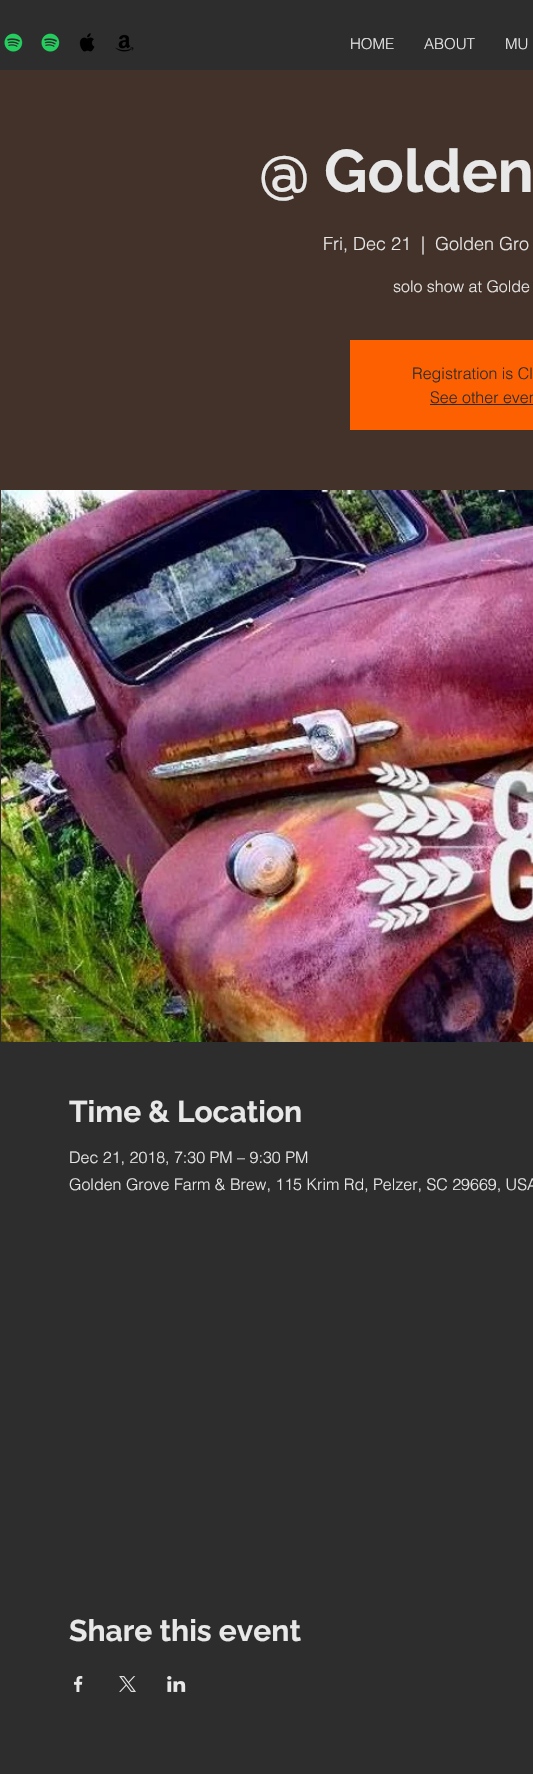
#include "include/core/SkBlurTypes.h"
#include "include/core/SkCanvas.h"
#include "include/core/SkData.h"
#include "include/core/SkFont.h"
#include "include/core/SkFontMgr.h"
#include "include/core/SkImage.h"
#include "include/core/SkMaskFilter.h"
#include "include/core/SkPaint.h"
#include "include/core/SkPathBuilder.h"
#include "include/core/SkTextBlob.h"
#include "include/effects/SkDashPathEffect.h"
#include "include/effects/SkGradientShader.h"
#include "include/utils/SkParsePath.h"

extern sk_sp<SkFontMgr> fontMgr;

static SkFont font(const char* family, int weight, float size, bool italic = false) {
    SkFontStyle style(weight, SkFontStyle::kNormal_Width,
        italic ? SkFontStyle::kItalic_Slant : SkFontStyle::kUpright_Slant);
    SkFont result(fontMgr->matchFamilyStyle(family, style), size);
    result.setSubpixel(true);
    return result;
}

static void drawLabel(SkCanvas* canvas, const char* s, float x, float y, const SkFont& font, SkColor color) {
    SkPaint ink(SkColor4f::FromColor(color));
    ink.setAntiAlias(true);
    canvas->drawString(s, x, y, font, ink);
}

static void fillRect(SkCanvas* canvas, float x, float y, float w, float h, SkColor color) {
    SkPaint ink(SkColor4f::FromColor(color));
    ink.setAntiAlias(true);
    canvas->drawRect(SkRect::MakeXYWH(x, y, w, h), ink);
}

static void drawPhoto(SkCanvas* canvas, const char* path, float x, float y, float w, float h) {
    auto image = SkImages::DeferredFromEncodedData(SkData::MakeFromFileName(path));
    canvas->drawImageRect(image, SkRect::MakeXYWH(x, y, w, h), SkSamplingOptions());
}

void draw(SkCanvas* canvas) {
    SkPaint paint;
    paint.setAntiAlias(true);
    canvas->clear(0xFF2D2D2D);
    drawPhoto(canvas, "assets/img1.png", 4, 33, 19, 19);
    drawPhoto(canvas, "assets/img1.png", 41, 33, 19, 19);
    drawPhoto(canvas, "assets/img2.png", 79, 33, 16, 19);
    drawPhoto(canvas, "assets/img3.png", 115, 34, 19, 18);
    SkFont font1 = font("helvetica", 300, 15);
    drawLabel(canvas, "HOME", 350, 49, font1, 0xFFE8E8E8);
    drawLabel(canvas, "ABOUT", 424, 49, font1, 0xFFE8E8E8);
    drawLabel(canvas, "MU", 505, 49, font1, 0xFFE8E8E8);
    fillRect(canvas, 0, 70, 533, 696, 0xFF423229);
    SkFont font2 = font("Raleway", 700, 60);
    drawLabel(canvas, "@ Golden", 259, 192, font2, 0xFFE8E8E8);
    SkFont font3 = font("helvetica", 300, 18);
    drawLabel(canvas, "Fri, Dec 21", 323, 250, font3, 0xFFE8E8E8);
    drawLabel(canvas, "|", 421, 250, font3, 0xFFE8E8E8);
    drawLabel(canvas, "Golden Gro", 435, 250, font3, 0xFFE8E8E8);
    SkFont font4 = font("helvetica", 300, 16);
    drawLabel(canvas, "solo show at Golde", 393, 292, font4, 0xFFE8E8E8);
    fillRect(canvas, 350, 340, 183, 90, 0xFFFC6000);
    drawLabel(canvas, "Registration is Cl", 412, 379, font4, 0xFF2D2D2D);
    drawLabel(canvas, "See other even", 430, 403, font4, 0xFF2D2D2D);
    fillRect(canvas, 430, 404, 103, 1, 0xFF2D2D2D);
    drawPhoto(canvas, "assets/img4.png", 1, 490, 532, 552);
    SkFont font5 = font("Raleway", 700, 30);
    drawLabel(canvas, "Time & Location", 69, 1122, font5, 0xFFE8E8E8);
    drawLabel(canvas, "Dec 21, 2018, 7:30 PM – 9:30 PM", 69, 1163, font4, 0xFFE8E8E8);
    drawLabel(canvas, "Golden Grove Farm & Brew, 115 Krim Rd, Pelzer, SC 29669, USA", 69, 1190, font4, 0xFFE8E8E8);
    drawLabel(canvas, "Share this event", 69, 1641, font5, 0xFFE8E8E8);
    drawPhoto(canvas, "assets/img5.png", 74, 1676, 9, 16);
    drawPhoto(canvas, "assets/img6.png", 119, 1676, 17, 16);
    drawPhoto(canvas, "assets/img7.png", 167, 1676, 19, 16);
}
